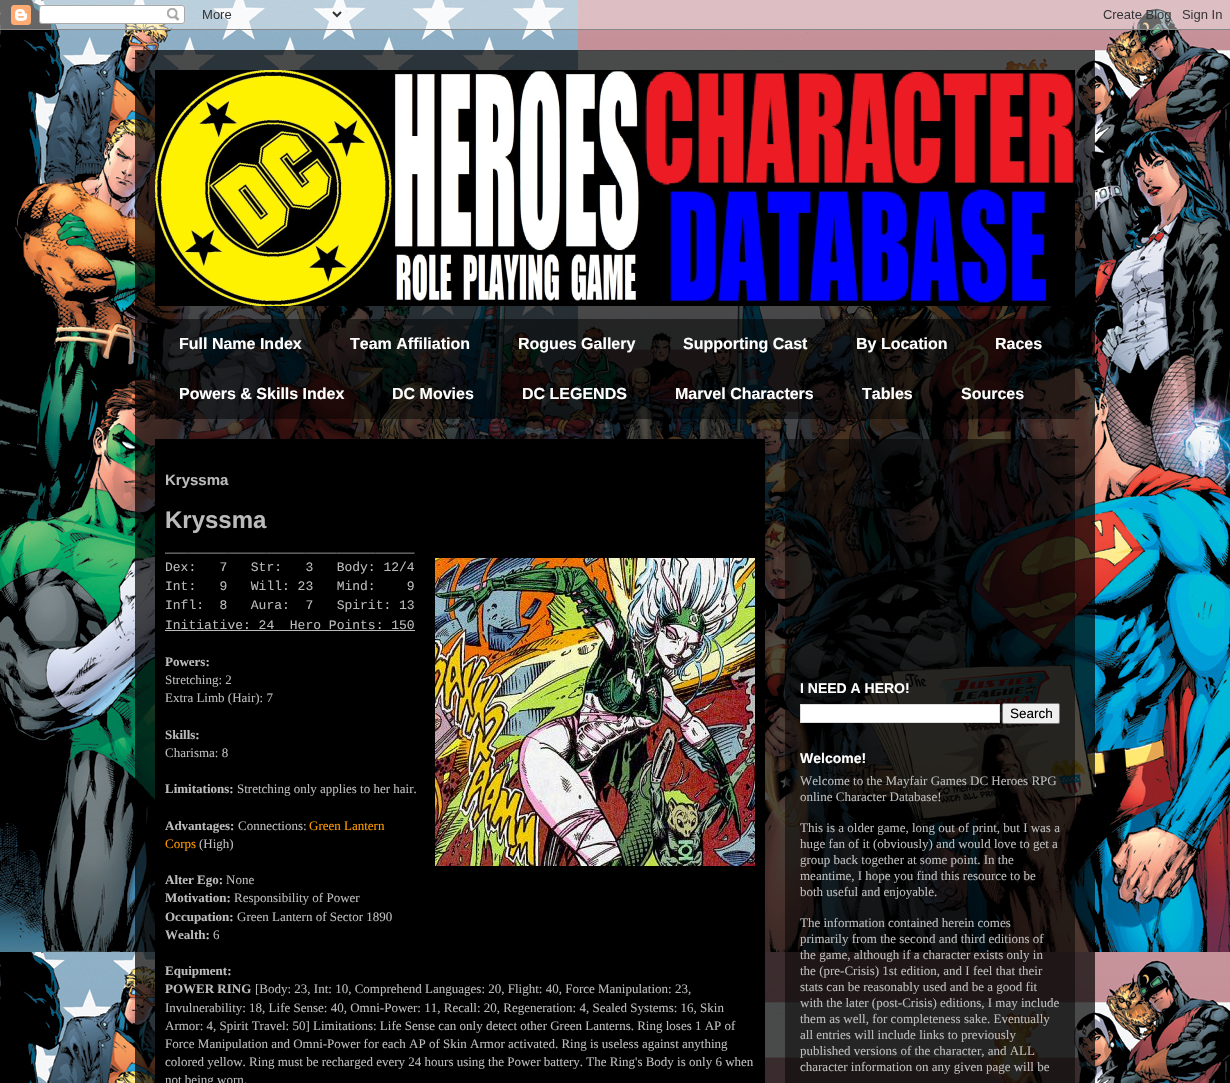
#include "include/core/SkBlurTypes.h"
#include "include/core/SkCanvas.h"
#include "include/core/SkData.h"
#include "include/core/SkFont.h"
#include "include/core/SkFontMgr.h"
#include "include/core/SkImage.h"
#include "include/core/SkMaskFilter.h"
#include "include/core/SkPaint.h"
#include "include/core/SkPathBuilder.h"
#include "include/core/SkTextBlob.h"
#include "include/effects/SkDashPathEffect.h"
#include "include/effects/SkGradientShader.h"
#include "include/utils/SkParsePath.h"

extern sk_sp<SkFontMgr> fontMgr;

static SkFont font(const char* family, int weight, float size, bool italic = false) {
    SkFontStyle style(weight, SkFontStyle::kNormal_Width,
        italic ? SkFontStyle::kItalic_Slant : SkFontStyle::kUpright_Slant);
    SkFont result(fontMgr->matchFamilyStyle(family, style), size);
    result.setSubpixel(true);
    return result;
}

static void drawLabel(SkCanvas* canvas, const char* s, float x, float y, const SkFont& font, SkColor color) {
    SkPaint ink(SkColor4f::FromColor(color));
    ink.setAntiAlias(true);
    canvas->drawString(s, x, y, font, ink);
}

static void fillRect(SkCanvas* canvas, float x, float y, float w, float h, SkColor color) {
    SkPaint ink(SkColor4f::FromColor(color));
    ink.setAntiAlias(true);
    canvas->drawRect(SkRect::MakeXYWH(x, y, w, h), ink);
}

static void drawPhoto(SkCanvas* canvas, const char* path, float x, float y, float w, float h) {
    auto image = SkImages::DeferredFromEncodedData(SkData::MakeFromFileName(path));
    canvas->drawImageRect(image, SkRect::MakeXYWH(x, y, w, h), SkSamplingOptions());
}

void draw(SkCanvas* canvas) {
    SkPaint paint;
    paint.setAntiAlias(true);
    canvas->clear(0xFFFFFFFF);
    drawPhoto(canvas, "assets/img1.png", 0, 0, 1230, 1083);
    drawPhoto(canvas, "assets/img2.png", 0, 0, 1230, 30);
    fillRect(canvas, 135, 50, 960, 1033, 0xB3000000);
    drawPhoto(canvas, "assets/img3.png", 155, 70, 920, 236);
    fillRect(canvas, 155, 319, 920, 100, 0x80000000);
    SkFont font1 = font("Liberation Sans", 700, 16);
    drawLabel(canvas, "Full Name Index", 179, 349, font1, 0xFFFFFFFF);
    drawLabel(canvas, "Team Affiliation", 350, 349, font1, 0xFFFFFFFF);
    drawLabel(canvas, "Rogues Gallery", 518, 349, font1, 0xFFFFFFFF);
    drawLabel(canvas, "Supporting Cast", 683, 349, font1, 0xFFFFFFFF);
    drawLabel(canvas, "By Location", 856, 349, font1, 0xFFFFFFFF);
    drawLabel(canvas, "Races", 995, 349, font1, 0xFFFFFFFF);
    drawLabel(canvas, "Powers & Skills Index", 179, 399, font1, 0xFFFFFFFF);
    drawLabel(canvas, "DC Movies", 392, 399, font1, 0xFFFFFFFF);
    drawLabel(canvas, "DC LEGENDS", 522, 399, font1, 0xFFFFFFFF);
    drawLabel(canvas, "Marvel Characters", 675, 399, font1, 0xFFFFFFFF);
    drawLabel(canvas, "Tables", 862, 399, font1, 0xFFFFFFFF);
    drawLabel(canvas, "Sources", 961, 399, font1, 0xFFFFFFFF);
    fillRect(canvas, 785, 439, 290, 644, 0x80000000);
    fillRect(canvas, 155, 439, 610, 644, 0xFF000000);
    SkFont font2 = font("Liberation Sans", 700, 15);
    drawLabel(canvas, "Kryssma", 165, 485, font2, 0xFFBBBBBB);
    SkFont font3 = font("Liberation Sans", 700, 24);
    drawLabel(canvas, "Kryssma", 165, 528, font3, 0xFFBBBBBB);
    SkFont font4 = font("Liberation Mono", 400, 13);
    drawLabel(canvas, "________________________________", 165, 552, font4, 0xFFBBBBBB);
    drawLabel(canvas, "Dex:   7   Str:   3   Body: 12/4", 165, 571, font4, 0xFFBBBBBB);
    drawPhoto(canvas, "assets/img4.png", 435, 558, 320, 308);
    drawLabel(canvas, "Int:   9   Will: 23   Mind:    9", 165, 590, font4, 0xFFBBBBBB);
    drawLabel(canvas, "Infl:  8   Aura:  7   Spirit: 13", 165, 609, font4, 0xFFBBBBBB);
    drawLabel(canvas, "Initiative: 24  Hero Points: 150", 165, 629, font4, 0xFFBBBBBB);
    fillRect(canvas, 165, 630, 250, 1, 0xFFBBBBBB);
    SkFont font5 = font("Liberation Serif", 700, 13);
    drawLabel(canvas, "Powers:", 165, 666, font5, 0xFFBBBBBB);
    SkFont font6 = font("Liberation Serif", 400, 13);
    drawLabel(canvas, "Stretching: 2", 165, 684, font6, 0xFFBBBBBB);
    drawLabel(canvas, "Extra Limb (Hair): 7", 165, 702, font6, 0xFFBBBBBB);
    drawLabel(canvas, "Skills:", 165, 739, font5, 0xFFBBBBBB);
    drawLabel(canvas, "Charisma: 8", 165, 757, font6, 0xFFBBBBBB);
    drawLabel(canvas, "Limitations:", 165, 793, font5, 0xFFBBBBBB);
    drawLabel(canvas, "Stretching only applies to her hair.", 237, 793, font6, 0xFFBBBBBB);
    drawLabel(canvas, "Advantages:", 165, 830, font5, 0xFFBBBBBB);
    drawLabel(canvas, "Connections:", 238, 830, font6, 0xFFBBBBBB);
    drawLabel(canvas, "Green Lantern", 309, 830, font6, 0xFFFF9900);
    drawLabel(canvas, "Corps", 165, 848, font6, 0xFFFF9900);
    drawLabel(canvas, "(High)", 199, 848, font6, 0xFFBBBBBB);
    drawLabel(canvas, "Alter Ego:", 165, 884, font5, 0xFFBBBBBB);
    drawLabel(canvas, "None", 226, 884, font6, 0xFFBBBBBB);
    drawLabel(canvas, "Motivation:", 165, 902, font5, 0xFFBBBBBB);
    drawLabel(canvas, "Responsibility of Power", 234, 902, font6, 0xFFBBBBBB);
    drawLabel(canvas, "Occupation:", 165, 921, font5, 0xFFBBBBBB);
    drawLabel(canvas, "Green Lantern of Sector 1890", 237, 921, font6, 0xFFBBBBBB);
    drawLabel(canvas, "Wealth:", 165, 939, font5, 0xFFBBBBBB);
    drawLabel(canvas, "6", 213, 939, font6, 0xFFBBBBBB);
    drawLabel(canvas, "Equipment:", 165, 975, font5, 0xFFBBBBBB);
    drawLabel(canvas, "POWER RING", 165, 993, font5, 0xFFBBBBBB);
    drawLabel(canvas, "[Body: 23, Int: 10, Comprehend Languages: 20, Flight: 40, Force Manipulation: 23,", 255, 993, font6, 0xFFBBBBBB);
    drawLabel(canvas, "Invulnerability: 18, Life Sense: 40, Omni-Power: 11, Recall: 20, Regeneration: 4, Sealed Systems: 16, Skin", 165, 1012, font6, 0xFFBBBBBB);
    drawLabel(canvas, "Armor: 4, Spirit Travel: 50] Limitations: Life Sense can only detect other Green Lanterns. Ring loses 1 AP of", 165, 1030, font6, 0xFFBBBBBB);
    drawLabel(canvas, "Force Manipulation and Omni-Power for each AP of Skin Armor activated. Ring is useless against anything", 165, 1048, font6, 0xFFBBBBBB);
    drawLabel(canvas, "colored yellow. Ring must be recharged every 24 hours using the Power battery. The Ring's Body is only 6 when", 165, 1066, font6, 0xFFBBBBBB);
    drawLabel(canvas, "not being worn.", 165, 1084, font6, 0xFFBBBBBB);
    SkFont font7 = font("Liberation Sans", 700, 14);
    drawLabel(canvas, "I NEED A HERO!", 800, 693, font7, 0xFFFFFFFF);
    paint.setColor(0xFFFFFFFF);
    canvas->drawRect(SkRect::MakeXYWH(800.5f, 704.5f, 199, 18), paint);
    paint.setStroke(true);
    paint.setStrokeWidth(1);
    paint.setColor(0xFFDDDDDD);
    canvas->drawRect(SkRect::MakeXYWH(800.5f, 704.5f, 199, 18), paint);
    paint.setStroke(false);
    paint.setColor(0xFFEFEFEF);
    canvas->drawRoundRect(SkRect::MakeXYWH(1002.5f, 703.5f, 57, 20), 1.5f, 1.5f, paint);
    paint.setStroke(true);
    paint.setColor(0xFF767676);
    canvas->drawRoundRect(SkRect::MakeXYWH(1002.5f, 703.5f, 57, 20), 1.5f, 1.5f, paint);
    SkFont font8 = font("Liberation Sans", 400, 13.5f);
    drawLabel(canvas, "Search", 1010, 718, font8, 0xFF000000);
    drawLabel(canvas, "Welcome!", 800, 763, font7, 0xFFFFFFFF);
    drawLabel(canvas, "Welcome to the Mayfair Games DC Heroes RPG", 800, 785, font6, 0xFFBBBBBB);
    drawLabel(canvas, "online Character Database!", 800, 801, font6, 0xFFBBBBBB);
    drawLabel(canvas, "This is a older game, long out of print, but I was a", 800, 832, font6, 0xFFBBBBBB);
    drawLabel(canvas, "huge fan of it (obviously) and would love to get a", 800, 848, font6, 0xFFBBBBBB);
    drawLabel(canvas, "group back together at some point. In the", 800, 864, font6, 0xFFBBBBBB);
    drawLabel(canvas, "meantime, I hope you find this resource to be", 800, 880, font6, 0xFFBBBBBB);
    drawLabel(canvas, "both useful and enjoyable.", 800, 896, font6, 0xFFBBBBBB);
    drawLabel(canvas, "The information contained herein comes", 800, 927, font6, 0xFFBBBBBB);
    drawLabel(canvas, "primarily from the second and third editions of", 800, 943, font6, 0xFFBBBBBB);
    drawLabel(canvas, "the game, although if a character exists only in", 800, 959, font6, 0xFFBBBBBB);
    drawLabel(canvas, "the (pre-Crisis) 1st edition, and I feel that their", 800, 975, font6, 0xFFBBBBBB);
    drawLabel(canvas, "stats can be reasonably used and be a good fit", 800, 991, font6, 0xFFBBBBBB);
    drawLabel(canvas, "with the later (post-Crisis) editions, I may include", 800, 1007, font6, 0xFFBBBBBB);
    drawLabel(canvas, "them as well, for completeness sake. Eventually", 800, 1023, font6, 0xFFBBBBBB);
    drawLabel(canvas, "all entries will include links to previously", 800, 1039, font6, 0xFFBBBBBB);
    drawLabel(canvas, "published versions of the character, and ALL", 800, 1055, font6, 0xFFBBBBBB);
    drawLabel(canvas, "character information on any given page will be", 800, 1071, font6, 0xFFBBBBBB);
}
